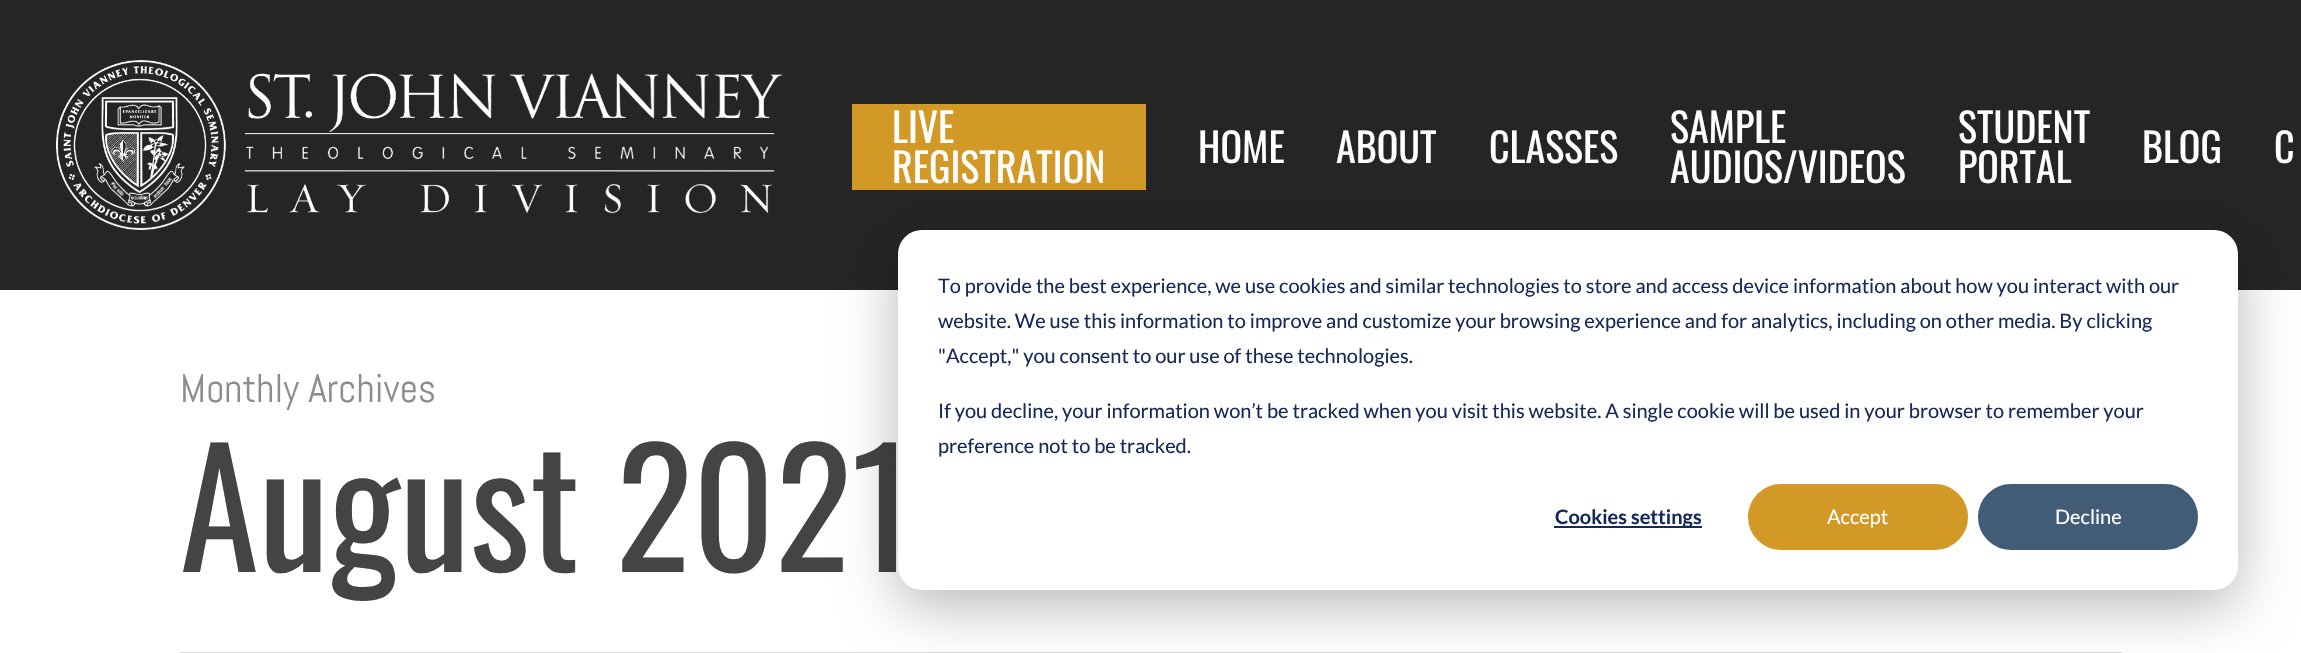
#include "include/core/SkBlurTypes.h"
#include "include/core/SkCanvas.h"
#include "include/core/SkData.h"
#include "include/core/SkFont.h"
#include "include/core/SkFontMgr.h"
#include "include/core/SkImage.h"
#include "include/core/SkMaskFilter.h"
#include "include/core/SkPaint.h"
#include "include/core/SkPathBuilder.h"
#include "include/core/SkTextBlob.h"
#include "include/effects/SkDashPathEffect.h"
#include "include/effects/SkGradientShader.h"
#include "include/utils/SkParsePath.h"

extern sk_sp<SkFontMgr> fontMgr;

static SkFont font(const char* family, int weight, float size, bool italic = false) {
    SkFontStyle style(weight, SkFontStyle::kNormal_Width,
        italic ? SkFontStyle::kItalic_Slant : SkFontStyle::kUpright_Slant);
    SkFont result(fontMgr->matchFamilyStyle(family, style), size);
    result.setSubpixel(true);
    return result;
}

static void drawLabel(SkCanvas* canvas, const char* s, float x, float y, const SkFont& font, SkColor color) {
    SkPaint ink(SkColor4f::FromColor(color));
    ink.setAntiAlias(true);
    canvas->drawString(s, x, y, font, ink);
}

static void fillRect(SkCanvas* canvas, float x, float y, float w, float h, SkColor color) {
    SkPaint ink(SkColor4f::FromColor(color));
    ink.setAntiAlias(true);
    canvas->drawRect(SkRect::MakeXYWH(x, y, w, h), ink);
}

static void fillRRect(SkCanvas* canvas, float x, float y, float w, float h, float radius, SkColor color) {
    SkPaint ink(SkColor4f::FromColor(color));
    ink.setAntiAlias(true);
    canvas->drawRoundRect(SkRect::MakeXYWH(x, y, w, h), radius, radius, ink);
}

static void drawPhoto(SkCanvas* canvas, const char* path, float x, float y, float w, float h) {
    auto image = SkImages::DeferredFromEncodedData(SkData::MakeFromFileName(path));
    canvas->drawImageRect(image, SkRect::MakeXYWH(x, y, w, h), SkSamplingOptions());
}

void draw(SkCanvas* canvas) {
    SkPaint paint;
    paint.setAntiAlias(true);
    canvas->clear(0xFFFFFFFF);
    fillRect(canvas, 0, 0, 2301, 290, 0xFF252525);
    drawPhoto(canvas, "assets/img1.png", 56, 60, 727, 170);
    fillRect(canvas, 852, 104, 294, 86, 0xFFD39926);
    SkFont font1 = font("Oswald", 400, 40);
    drawLabel(canvas, "LIVE", 892, 143, font1, 0xFFFFFFFF);
    drawLabel(canvas, "REGISTRATION", 892, 183, font1, 0xFFFFFFFF);
    drawLabel(canvas, "HOME", 1198, 163, font1, 0xFFFFFFFF);
    drawLabel(canvas, "ABOUT", 1336, 163, font1, 0xFFFFFFFF);
    drawLabel(canvas, "CLASSES", 1489, 163, font1, 0xFFFFFFFF);
    drawLabel(canvas, "SAMPLE", 1670, 143, font1, 0xFFFFFFFF);
    drawLabel(canvas, "AUDIOS/VIDEOS", 1670, 183, font1, 0xFFFFFFFF);
    drawLabel(canvas, "STUDENT", 1958, 143, font1, 0xFFFFFFFF);
    drawLabel(canvas, "PORTAL", 1958, 183, font1, 0xFFFFFFFF);
    drawLabel(canvas, "BLOG", 2142, 163, font1, 0xFFFFFFFF);
    drawLabel(canvas, "C", 2274, 163, font1, 0xFFFFFFFF);
    fillRect(canvas, 180, 652, 1942, 1, 0xFFD9D9D9);
    SkFont font2 = font("Abel", 400, 40);
    drawLabel(canvas, "Monthly Archives", 180, 402, font2, 0xFF8C8C8C);
    SkFont font3 = font("Oswald", 400, 160);
    drawLabel(canvas, "August 2021", 180, 572, font3, 0xFF444444);
    paint.setColor(0x47000000);
    paint.setMaskFilter(SkMaskFilter::MakeBlur(kNormal_SkBlurStyle, 28));
    canvas->drawRoundRect(SkRect::MakeXYWH(898, 246, 1340, 360), 24, 24, paint);
    paint.setMaskFilter(nullptr);
    fillRRect(canvas, 898, 230, 1340, 360, 24, 0xFFFFFFFF);
    SkFont font4 = font("Lato", 400, 20);
    drawLabel(canvas, "To provide the best experience, we use cookies and similar technologies to store and access device information about how you interact with our", 938, 293, font4, 0xFF15295A);
    drawLabel(canvas, "website. We use this information to improve and customize your browsing experience and for analytics, including on other media. By clicking", 938, 328, font4, 0xFF15295A);
    drawLabel(canvas, "\"Accept,\" you consent to our use of these technologies.", 938, 363, font4, 0xFF15295A);
    drawLabel(canvas, "If you decline, your information won’t be tracked when you visit this website. A single cookie will be used in your browser to remember your", 938, 418, font4, 0xFF15295A);
    drawLabel(canvas, "preference not to be tracked.", 938, 453, font4, 0xFF15295A);
    fillRect(canvas, 1554, 526, 148, 2, 0xFF15295A);
    SkFont font5 = font("Lato", 700, 20);
    drawLabel(canvas, "Cookies settings", 1555, 524, font5, 0xFF15295A);
    paint.setColor(0xFFD39926);
    canvas->drawRoundRect(SkRect::MakeXYWH(1749, 485, 218, 64), 32, 32, paint);
    paint.setStroke(true);
    paint.setStrokeWidth(2);
    canvas->drawRoundRect(SkRect::MakeXYWH(1749, 485, 218, 64), 32, 32, paint);
    drawLabel(canvas, "Accept", 1827, 524, font4, 0xFFFFFFFF);
    paint.setStroke(false);
    paint.setColor(0xFF425B76);
    canvas->drawRoundRect(SkRect::MakeXYWH(1979, 485, 218, 64), 32, 32, paint);
    paint.setStroke(true);
    canvas->drawRoundRect(SkRect::MakeXYWH(1979, 485, 218, 64), 32, 32, paint);
    drawLabel(canvas, "Decline", 2055, 524, font4, 0xFFFFFFFF);
}
